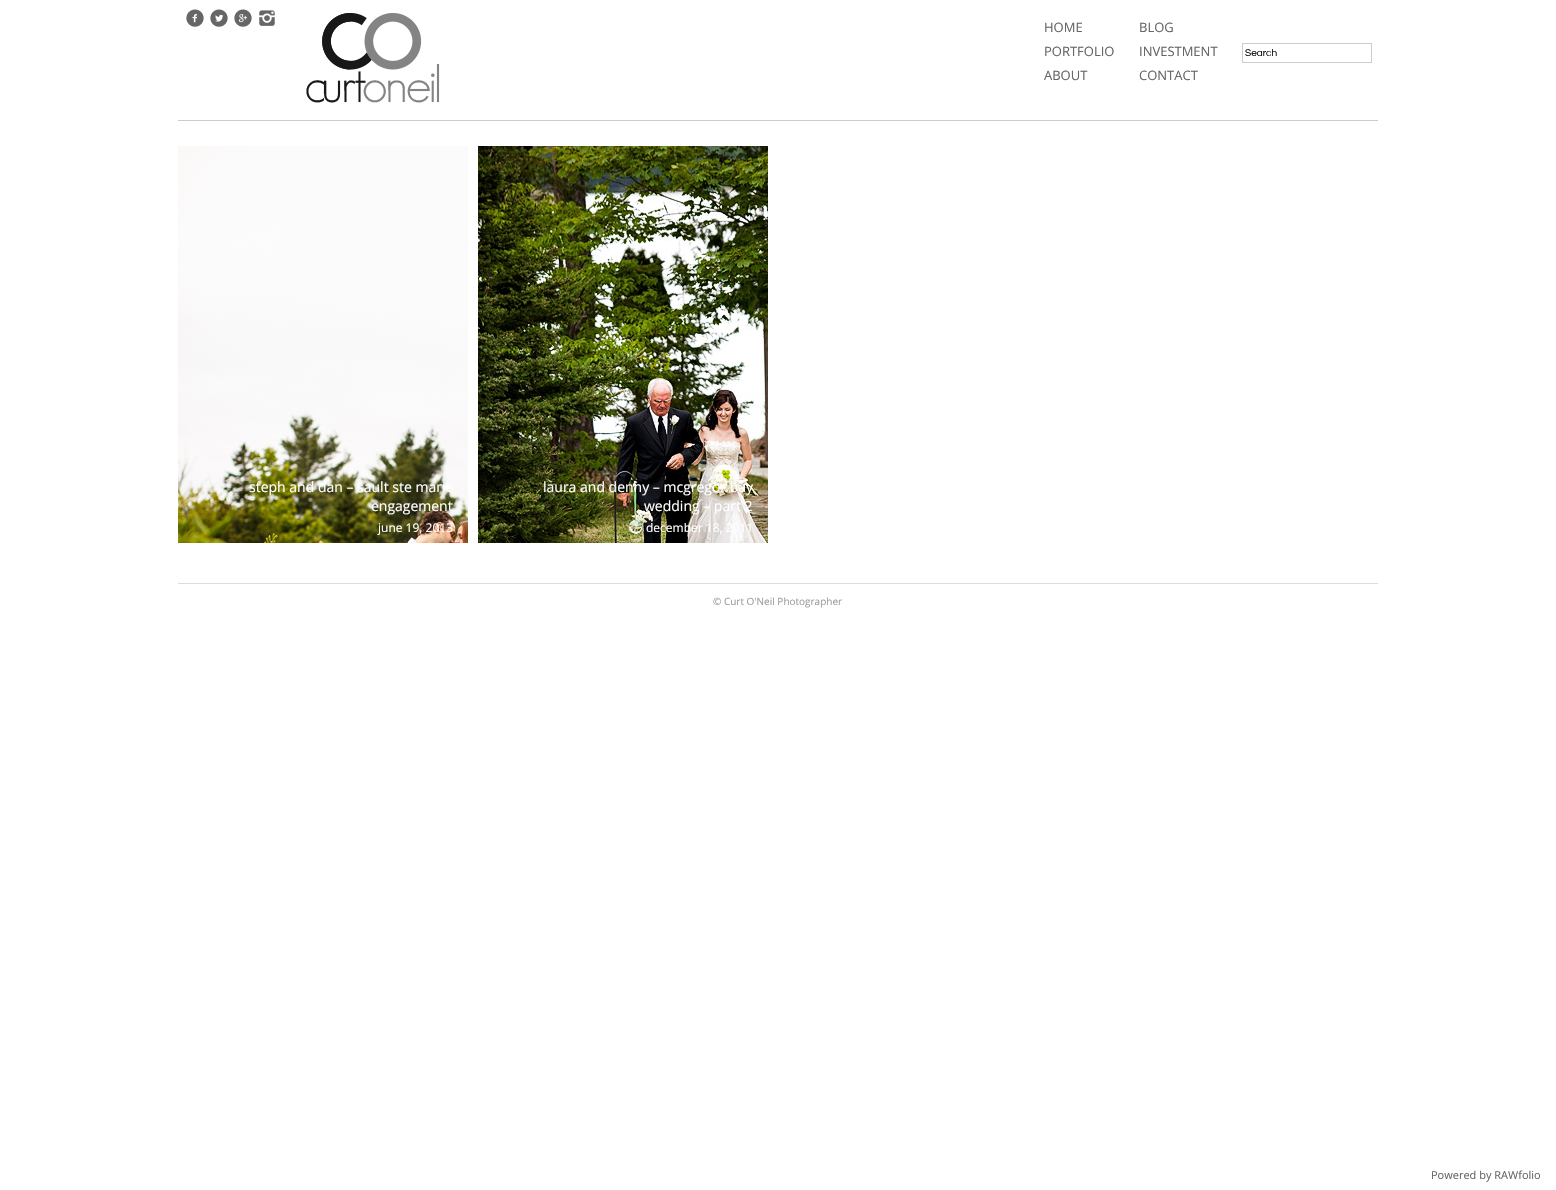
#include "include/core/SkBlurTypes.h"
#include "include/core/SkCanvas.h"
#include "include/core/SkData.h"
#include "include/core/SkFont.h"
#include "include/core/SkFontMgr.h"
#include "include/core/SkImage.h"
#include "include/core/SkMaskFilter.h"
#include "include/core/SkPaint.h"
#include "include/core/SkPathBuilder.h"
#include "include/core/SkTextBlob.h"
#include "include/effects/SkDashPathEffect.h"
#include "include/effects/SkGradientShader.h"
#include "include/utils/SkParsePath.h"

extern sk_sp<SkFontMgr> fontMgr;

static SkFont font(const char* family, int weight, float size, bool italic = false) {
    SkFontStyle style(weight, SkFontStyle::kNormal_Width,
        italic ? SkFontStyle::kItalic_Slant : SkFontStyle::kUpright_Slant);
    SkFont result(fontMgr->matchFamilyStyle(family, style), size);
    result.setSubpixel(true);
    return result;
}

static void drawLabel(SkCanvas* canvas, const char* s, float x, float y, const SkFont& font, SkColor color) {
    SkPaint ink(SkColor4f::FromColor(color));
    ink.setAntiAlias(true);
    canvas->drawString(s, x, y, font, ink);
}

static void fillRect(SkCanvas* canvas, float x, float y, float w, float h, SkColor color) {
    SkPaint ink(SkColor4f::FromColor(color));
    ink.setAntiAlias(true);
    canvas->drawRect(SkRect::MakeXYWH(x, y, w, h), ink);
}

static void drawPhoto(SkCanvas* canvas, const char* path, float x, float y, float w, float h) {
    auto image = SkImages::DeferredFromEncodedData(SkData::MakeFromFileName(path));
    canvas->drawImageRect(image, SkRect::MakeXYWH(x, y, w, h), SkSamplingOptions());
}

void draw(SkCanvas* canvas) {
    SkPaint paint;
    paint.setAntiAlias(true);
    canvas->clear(0xFFFFFFFF);
    fillRect(canvas, 178, 120, 1200, 1, 0xFFCCCCCC);
    drawPhoto(canvas, "assets/img1.png", 186, 9, 18, 18);
    drawPhoto(canvas, "assets/img2.png", 210, 9, 18, 18);
    drawPhoto(canvas, "assets/img3.png", 234, 9, 18, 18);
    drawPhoto(canvas, "assets/img4.png", 259, 10, 16, 16);
    drawPhoto(canvas, "assets/img5.png", 306, 13, 134, 90);
    SkFont font1 = font("Open Sans", 400, 13);
    drawLabel(canvas, "HOME", 1044, 32, font1, 0xFF666666);
    drawLabel(canvas, "PORTFOLIO", 1044, 56, font1, 0xFF666666);
    drawLabel(canvas, "ABOUT", 1044, 80, font1, 0xFF666666);
    drawLabel(canvas, "BLOG", 1139, 32, font1, 0xFF666666);
    drawLabel(canvas, "INVESTMENT", 1139, 56, font1, 0xFF666666);
    drawLabel(canvas, "CONTACT", 1139, 80, font1, 0xFF666666);
    paint.setStroke(true);
    paint.setStrokeWidth(1);
    paint.setColor(0xFFCCCCCC);
    canvas->drawRect(SkRect::MakeXYWH(1242.5f, 43.5f, 129, 19), paint);
    SkFont font2 = font("Questrial", 400, 10);
    drawLabel(canvas, "Search", 1245, 56, font2, 0xFF000000);
    drawPhoto(canvas, "assets/img6.png", 178, 146, 290, 397);
    SkFont font3 = font("Open Sans", 400, 14);
    drawLabel(canvas, "steph and dan – sault ste marie", 249, 492, font3, 0xFFFFFFFF);
    drawLabel(canvas, "engagement", 371, 511, font3, 0xFFFFFFFF);
    SkFont font4 = font("Open Sans", 400, 12);
    drawLabel(canvas, "june 19, 2013", 378, 532, font4, 0xFFFFFFFF);
    drawPhoto(canvas, "assets/img7.png", 478, 146, 290, 397);
    drawLabel(canvas, "laura and denny – mcgregor bay", 543, 492, font3, 0xFFFFFFFF);
    drawLabel(canvas, "wedding – part 2", 644, 511, font3, 0xFFFFFFFF);
    drawLabel(canvas, "december 18, 2011", 646, 532, font4, 0xFFFFFFFF);
    fillRect(canvas, 178, 583, 1200, 1, 0xFFDDDDDD);
    SkFont font5 = font("Open Sans", 400, 10);
    drawLabel(canvas, "© Curt O'Neil Photographer", 713, 605, font5, 0xFF9B9B9B);
    SkFont font6 = font("Open Sans", 400, 11);
    drawLabel(canvas, "Powered by RAWfolio", 1431, 1179, font6, 0xFF666666);
}
